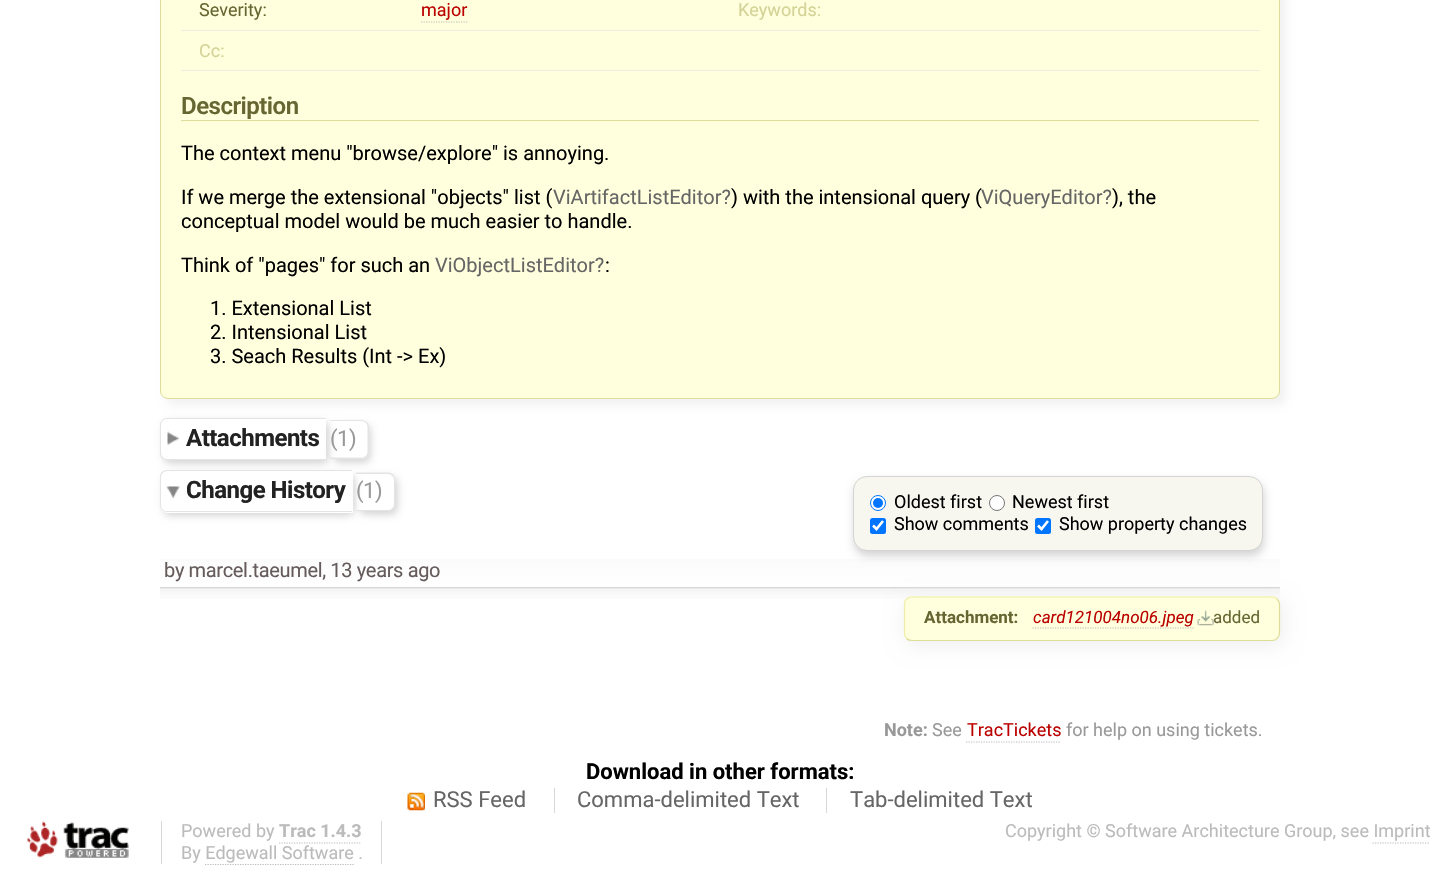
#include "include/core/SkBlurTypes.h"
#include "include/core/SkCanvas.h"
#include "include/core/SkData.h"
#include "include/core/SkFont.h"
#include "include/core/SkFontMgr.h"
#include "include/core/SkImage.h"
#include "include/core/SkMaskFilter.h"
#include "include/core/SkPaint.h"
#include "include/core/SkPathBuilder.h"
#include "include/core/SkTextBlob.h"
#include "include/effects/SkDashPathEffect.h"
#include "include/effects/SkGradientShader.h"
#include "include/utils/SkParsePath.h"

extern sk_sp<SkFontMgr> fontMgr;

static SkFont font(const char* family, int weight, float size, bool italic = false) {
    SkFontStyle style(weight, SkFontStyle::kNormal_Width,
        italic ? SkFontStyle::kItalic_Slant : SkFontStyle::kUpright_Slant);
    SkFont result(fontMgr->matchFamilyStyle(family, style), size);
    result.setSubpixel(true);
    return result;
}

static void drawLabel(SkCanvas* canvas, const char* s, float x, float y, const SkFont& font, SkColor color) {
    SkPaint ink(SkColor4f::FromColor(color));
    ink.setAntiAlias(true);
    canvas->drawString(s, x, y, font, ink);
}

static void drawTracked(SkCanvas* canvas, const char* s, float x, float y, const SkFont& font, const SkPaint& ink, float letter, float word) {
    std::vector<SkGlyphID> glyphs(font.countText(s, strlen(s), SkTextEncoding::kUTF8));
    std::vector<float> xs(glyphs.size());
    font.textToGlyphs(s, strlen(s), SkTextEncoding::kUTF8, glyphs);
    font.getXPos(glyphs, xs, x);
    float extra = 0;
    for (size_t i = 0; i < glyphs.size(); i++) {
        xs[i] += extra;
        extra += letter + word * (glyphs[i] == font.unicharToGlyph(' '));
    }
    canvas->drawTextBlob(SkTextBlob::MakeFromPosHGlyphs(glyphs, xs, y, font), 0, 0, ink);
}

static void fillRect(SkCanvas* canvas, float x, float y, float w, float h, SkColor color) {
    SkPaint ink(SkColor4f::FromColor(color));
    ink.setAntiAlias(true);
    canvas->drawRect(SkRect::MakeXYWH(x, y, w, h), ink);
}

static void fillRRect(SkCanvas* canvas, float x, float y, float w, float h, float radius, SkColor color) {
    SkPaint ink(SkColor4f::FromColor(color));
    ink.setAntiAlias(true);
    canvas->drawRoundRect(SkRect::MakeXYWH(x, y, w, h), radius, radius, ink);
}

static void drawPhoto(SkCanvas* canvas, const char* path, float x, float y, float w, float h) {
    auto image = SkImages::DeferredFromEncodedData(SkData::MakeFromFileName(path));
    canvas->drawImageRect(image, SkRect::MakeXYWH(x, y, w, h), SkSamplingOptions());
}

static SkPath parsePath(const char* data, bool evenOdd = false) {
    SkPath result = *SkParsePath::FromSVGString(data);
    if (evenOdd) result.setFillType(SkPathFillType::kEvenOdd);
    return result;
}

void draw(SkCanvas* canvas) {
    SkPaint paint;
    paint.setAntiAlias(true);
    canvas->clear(0xFFFFFFFF);
    paint.setColor(0xFFF2F2F2);
    paint.setMaskFilter(SkMaskFilter::MakeBlur(kNormal_SkBlurStyle, 4));
    canvas->drawRoundRect(SkRect::MakeXYWH(166, -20, 1120, 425), 8, 8, paint);
    paint.setMaskFilter(nullptr);
    paint.setColor(0xFFFFFFDD);
    canvas->drawRoundRect(SkRect::MakeXYWH(160.5f, -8.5f, 1119, 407), 7.5f, 7.5f, paint);
    paint.setStroke(true);
    paint.setStrokeWidth(1);
    paint.setColor(0xFFDDDD99);
    canvas->drawRoundRect(SkRect::MakeXYWH(160.5f, -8.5f, 1119, 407), 7.5f, 7.5f, paint);
    fillRect(canvas, 181, 30, 1079, 1, 0xFFEEEEDD);
    SkFont font1 = font("Roboto", 400, 18);
    drawLabel(canvas, "Severity:", 199, 16, font1, 0xFF666633);
    drawLabel(canvas, "major", 421, 16, font1, 0xFFBB0000);
    paint.setStrokeWidth(1.2f);
    paint.setColor(0xFFBBBBBB);
    paint.setPathEffect(SkDashPathEffect::Make({{1.25f, 1.25f}}, 0));
    canvas->drawPath(parsePath("M421 22H467.5"), paint);
    paint.setPathEffect(nullptr);
    drawLabel(canvas, "Keywords:", 738, 16, font1, 0xFFD3D398);
    fillRect(canvas, 181, 70, 1079, 1, 0xFFEEEEDD);
    drawLabel(canvas, "Cc:", 199, 57, font1, 0xFFD3D398);
    fillRect(canvas, 181, 120, 1078, 1, 0xFFDDDD99);
    SkFont font2 = font("Roboto", 600, 24);
    paint.setStroke(false);
    paint.setColor(0xFF666633);
    drawTracked(canvas, "Description", 181, 114, font2, paint, -0.5f, 0);
    SkFont font3 = font("Roboto", 400, 20);
    drawLabel(canvas, "The context menu \"browse/explore\" is annoying.", 181, 160, font3, 0xFF000000);
    drawLabel(canvas, "If we merge the extensional \"objects\" list (", 181, 204, font3, 0xFF000000);
    drawLabel(canvas, "ViArtifactListEditor?", 553, 204, font3, 0xFF666666);
    drawLabel(canvas, ") with the intensional query (", 731, 204, font3, 0xFF000000);
    drawLabel(canvas, "ViQueryEditor?", 981, 204, font3, 0xFF666666);
    drawLabel(canvas, "), the", 1112, 204, font3, 0xFF000000);
    drawLabel(canvas, "conceptual model would be much easier to handle.", 181, 228, font3, 0xFF000000);
    drawLabel(canvas, "Think of \"pages\" for such an", 181, 272, font3, 0xFF000000);
    drawLabel(canvas, "ViObjectListEditor?", 435, 272, font3, 0xFF666666);
    drawLabel(canvas, ":", 605, 272, font3, 0xFF000000);
    drawLabel(canvas, "1. Extensional List", 210, 315, font3, 0xFF000000);
    drawLabel(canvas, "2. Intensional List", 210, 339, font3, 0xFF000000);
    drawLabel(canvas, "3. Seach Results (Int -> Ex)", 210, 363, font3, 0xFF000000);
    canvas->save();
    canvas->clipPath(parsePath("M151 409H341V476H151ZM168 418H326V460H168C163.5 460 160 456.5 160 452V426C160 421.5 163.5 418 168 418Z", true), true);
    paint.setColor(0xFFD7D7D7);
    paint.setMaskFilter(SkMaskFilter::MakeBlur(kNormal_SkBlurStyle, 3.5f));
    canvas->drawRoundRect(SkRect::MakeXYWH(163, 421, 166, 43), 8, 8, paint);
    paint.setMaskFilter(nullptr);
    canvas->restore();
    drawPhoto(canvas, "assets/img1.png", 167, 431, 12, 15);
    paint.setColor(0xFFE4E4E4);
    canvas->drawPath(parsePath("M167 418H326V460H167C163 460 160 457 160 453V425C160 421 163 418 167 418ZM167 419H326V459H167C164 459 161 456 161 453V425C161 421 164 419 167 419Z", true), paint);
    SkFont font4 = font("Roboto", 700, 24);
    paint.setColor(0xFF222222);
    drawTracked(canvas, "Attachments", 186, 446, font4, paint, -0.5f, 0);
    canvas->save();
    canvas->clipPath(parsePath("M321 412H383V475H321ZM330 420H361C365.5 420 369 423.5 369 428V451C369 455.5 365.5 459 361 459H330Z", true), true);
    paint.setColor(0xFFD7D7D7);
    paint.setMaskFilter(SkMaskFilter::MakeBlur(kNormal_SkBlurStyle, 3.5f));
    canvas->drawRoundRect(SkRect::MakeXYWH(333, 424, 38, 39), 8, 8, paint);
    paint.setMaskFilter(nullptr);
    canvas->restore();
    paint.setColor(0xFFE4E4E4);
    canvas->drawPath(parsePath("M330 420H361.5C365.5 420 369 423 369 427V451.5C369 455.5 365.5 459 361.5 459H330ZM330 421H361.5C365 421 367.5 424 367.5 427V451.5C367.5 455 365 457.5 361.5 457.5H330Z", true), paint);
    SkFont font5 = font("Roboto", 400, 22);
    paint.setColor(0xFF999999);
    drawTracked(canvas, "(1)", 330, 446, font5, paint, -0.5f, 0);
    canvas->save();
    canvas->clipPath(parsePath("M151 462H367V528H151ZM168 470H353V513H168C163.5 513 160 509.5 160 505V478C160 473.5 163.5 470 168 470Z", true), true);
    paint.setColor(0xFFD7D7D7);
    paint.setMaskFilter(SkMaskFilter::MakeBlur(kNormal_SkBlurStyle, 3.5f));
    canvas->drawRoundRect(SkRect::MakeXYWH(163, 474, 192, 42), 8, 8, paint);
    paint.setMaskFilter(nullptr);
    canvas->restore();
    drawPhoto(canvas, "assets/img2.png", 166, 486, 14, 12);
    paint.setColor(0xFFE4E4E4);
    canvas->drawPath(parsePath("M167 470H352V512H167C163 512 160 509 160 505V477C160 473 163 470 167 470ZM167 471H352V511H167C164 511 161 509 161 505V477C161 474 164 471 167 471Z", true), paint);
    paint.setColor(0xFF222222);
    drawTracked(canvas, "Change History", 186, 498, font4, paint, -0.5f, 0);
    canvas->save();
    canvas->clipPath(parsePath("M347 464H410V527H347ZM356 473H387C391.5 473 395 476.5 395 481V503C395 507.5 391.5 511 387 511H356Z", true), true);
    paint.setColor(0xFFD7D7D7);
    paint.setMaskFilter(SkMaskFilter::MakeBlur(kNormal_SkBlurStyle, 3.5f));
    canvas->drawRoundRect(SkRect::MakeXYWH(359, 476, 39, 39), 8, 8, paint);
    paint.setMaskFilter(nullptr);
    canvas->restore();
    paint.setColor(0xFFE4E4E4);
    canvas->drawPath(parsePath("M356 472.5H388C392 472.5 395 475.5 395 479.5V504C395 508 392 511 388 511H356ZM356 474H388C391 474 394 476.5 394 479.5V504C394 507.5 391 510 388 510H356Z", true), paint);
    paint.setColor(0xFF999999);
    drawTracked(canvas, "(1)", 356, 498, font5, paint, -0.5f, 0);
    {
        const SkColor colors[] = {0xFFFFFFFF, 0xFFFBFBFB, 0xFFF3F3F3, 0xFFC7C5C5, 0xFFFFFFFF, 0xFFFBFBFB};
        const float stops[] = {0, 0.14f, 0.32f, 0.37f, 0.37f, 1};
        const SkPoint ends[] = {{720, 603}, {720, 559}};
        paint.setShader(SkGradientShader::MakeLinear(ends, colors, stops, 6, SkTileMode::kClamp));
        paint.setAlpha(255);
    }
    canvas->drawRect(SkRect::MakeXYWH(160, 559, 1120, 40), paint);
    paint.setShader(nullptr);
    paint.setColor(0xFFD4D4D4);
    paint.setMaskFilter(SkMaskFilter::MakeBlur(kNormal_SkBlurStyle, 4.5f));
    canvas->drawRoundRect(SkRect::MakeXYWH(854, 481, 410, 75), 14, 14, paint);
    paint.setMaskFilter(nullptr);
    paint.setColor(0xFFF7F7F0);
    canvas->drawRoundRect(SkRect::MakeXYWH(853.5f, 476.5f, 409, 74), 13.5f, 13.5f, paint);
    paint.setStroke(true);
    paint.setStrokeWidth(1);
    paint.setColor(0xFFD4D4D4);
    canvas->drawRoundRect(SkRect::MakeXYWH(853.5f, 476.5f, 409, 74), 13.5f, 13.5f, paint);
    paint.setStroke(false);
    paint.setColor(0xFFFFFFFF);
    canvas->drawCircle(878, 503, 7.5f, paint);
    paint.setStroke(true);
    paint.setColor(0xFF0075FF);
    canvas->drawCircle(878, 503, 7.5f, paint);
    paint.setStroke(false);
    canvas->drawCircle(878, 503, 5, paint);
    drawLabel(canvas, "Oldest first", 894, 508, font1, 0xFF000000);
    paint.setColor(0xFFFFFFFF);
    canvas->drawCircle(997, 503, 7.5f, paint);
    paint.setStroke(true);
    paint.setColor(0xFF767676);
    canvas->drawCircle(997, 503, 7.5f, paint);
    drawLabel(canvas, "Newest first", 1012, 508, font1, 0xFF000000);
    fillRRect(canvas, 870, 518, 16, 16, 2.5f, 0xFF0075FF);
    paint.setStrokeWidth(2.6f);
    paint.setColor(0xFFFFFFFF);
    canvas->drawPath(parsePath("M873 525.5L876.5 529L883 521"), paint);
    drawLabel(canvas, "Show comments", 894, 530, font1, 0xFF000000);
    fillRRect(canvas, 1035, 518, 16, 16, 2.5f, 0xFF0075FF);
    canvas->drawPath(parsePath("M1038 525.5L1041.5 529L1048 521"), paint);
    drawLabel(canvas, "Show property changes", 1059, 530, font1, 0xFF000000);
    paint.setStroke(false);
    paint.setColor(0xFF655B5B);
    drawTracked(canvas, "by marcel.taeumel, 13 years ago", 164, 577, font3, paint, -0.35f, 0);
    paint.setColor(0xFFEEEEEE);
    paint.setMaskFilter(SkMaskFilter::MakeBlur(kNormal_SkBlurStyle, 10));
    canvas->drawRoundRect(SkRect::MakeXYWH(906, 600, 377, 45), 8, 8, paint);
    paint.setMaskFilter(nullptr);
    fillRRect(canvas, 904, 596, 376, 45, 8, 0xFFFFFFDD);
    paint.setStroke(true);
    paint.setStrokeWidth(1.2f);
    paint.setColor(0xFFDDDD99);
    canvas->drawPath(parsePath("M1277 599C1278.5 600.5 1279.5 602.5 1279.5 604V633C1279.5 635 1278.5 637 1277 638.5C1276 640 1274 640.5 1272 640.5H912C910 640.5 908 640 906.5 638.5"), paint);
    paint.setColor(0xFFEEEEAA);
    canvas->drawPath(parsePath("M906.5 638.5C905 637 904.5 635 904.5 633V604C904.5 602.5 905 600.5 906.5 599C908 597.5 910 597 912 597H1272C1274 597 1276 597.5 1277 599"), paint);
    SkFont font6 = font("Roboto", 700, 17);
    drawLabel(canvas, "Attachment:", 924, 623, font6, 0xFF666633);
    SkFont font7 = font("Roboto", 400, 17, true);
    drawLabel(canvas, "card121004no06.jpeg", 1033, 623, font7, 0xFFBB0000);
    paint.setColor(0xFFBBBBBB);
    paint.setPathEffect(SkDashPathEffect::Make({{1.25f, 1.25f}}, 0));
    canvas->drawPath(parsePath("M1032.5 628H1194"), paint);
    paint.setPathEffect(nullptr);
    drawPhoto(canvas, "assets/img3.png", 1197, 610, 17, 16);
    SkFont font8 = font("Roboto", 400, 17);
    drawLabel(canvas, "added", 1213, 623, font8, 0xFF666633);
    SkFont font9 = font("Roboto", 700, 18);
    drawLabel(canvas, "Note:", 884, 736, font9, 0xFF999999);
    drawLabel(canvas, "See", 932, 736, font1, 0xFF999999);
    drawLabel(canvas, "TracTickets", 967, 736, font1, 0xFFBB0000);
    paint.setPathEffect(SkDashPathEffect::Make({{1.25f, 1.25f}}, 0));
    canvas->drawPath(parsePath("M966 742H1061"), paint);
    paint.setPathEffect(nullptr);
    drawLabel(canvas, "for help on using tickets.", 1066, 736, font1, 0xFF999999);
    SkFont font10 = font("Roboto", 700, 22);
    drawLabel(canvas, "Download in other formats:", 586, 779, font10, 0xFF000000);
    drawPhoto(canvas, "assets/img4.png", 407, 792, 18, 19);
    drawLabel(canvas, "RSS Feed", 433, 807, font5, 0xFF666666);
    fillRect(canvas, 554, 788, 1, 25, 0xFFD7D7D7);
    drawLabel(canvas, "Comma-delimited Text", 577, 807, font5, 0xFF666666);
    fillRect(canvas, 826, 788, 1, 25, 0xFFD7D7D7);
    drawLabel(canvas, "Tab-delimited Text", 850, 807, font5, 0xFF666666);
    drawPhoto(canvas, "assets/img5.png", 27, 821, 102, 37);
    fillRect(canvas, 381, 821, 1, 43, 0xFFD7D7D7);
    fillRect(canvas, 161, 821, 1, 43, 0xFFD7D7D7);
    drawLabel(canvas, "Powered by", 181, 837, font1, 0xFFBBBBBB);
    drawLabel(canvas, "Trac 1.4.3", 279, 837, font9, 0xFFBBBBBB);
    paint.setPathEffect(SkDashPathEffect::Make({{1.25f, 1.25f}}, 0));
    canvas->drawPath(parsePath("M279 843H361"), paint);
    paint.setPathEffect(nullptr);
    drawLabel(canvas, "By Edgewall Software .", 181, 859, font1, 0xFFBBBBBB);
    paint.setPathEffect(SkDashPathEffect::Make({{1.25f, 1.25f}}, 0));
    canvas->drawPath(parsePath("M205 864.5H354"), paint);
    paint.setPathEffect(nullptr);
    drawLabel(canvas, "Copyright © Software Architecture Group, see Imprint", 1005, 837, font1, 0xFFBBBBBB);
    paint.setPathEffect(SkDashPathEffect::Make({{1.25f, 1.25f}}, 0));
    canvas->drawPath(parsePath("M1372.5 843H1430"), paint);
    paint.setPathEffect(nullptr);
}
